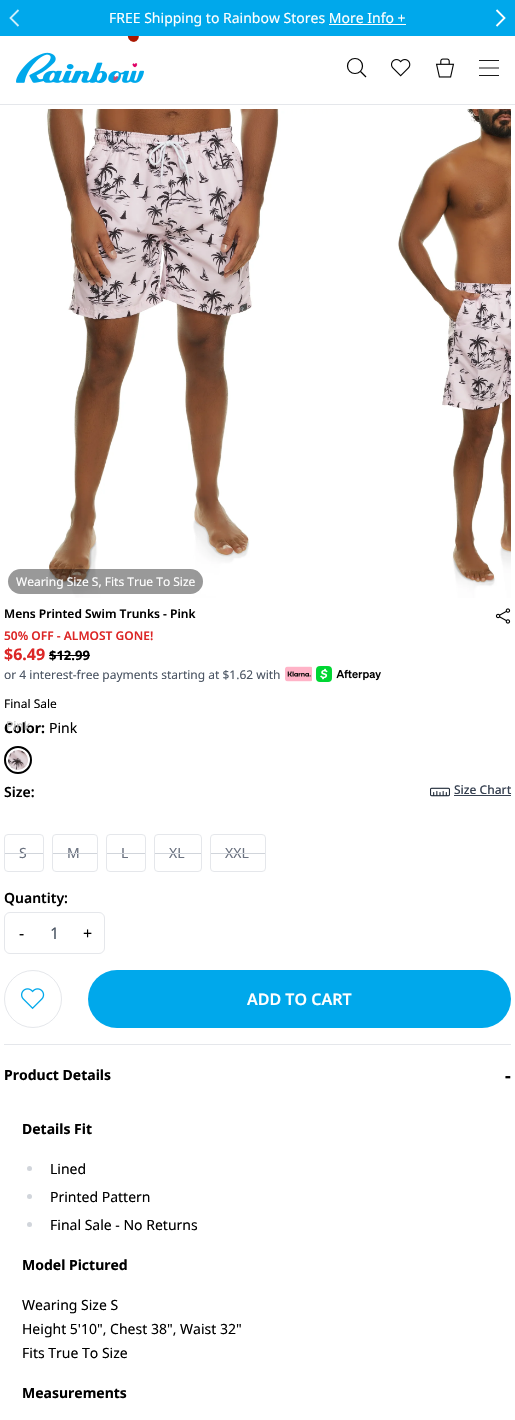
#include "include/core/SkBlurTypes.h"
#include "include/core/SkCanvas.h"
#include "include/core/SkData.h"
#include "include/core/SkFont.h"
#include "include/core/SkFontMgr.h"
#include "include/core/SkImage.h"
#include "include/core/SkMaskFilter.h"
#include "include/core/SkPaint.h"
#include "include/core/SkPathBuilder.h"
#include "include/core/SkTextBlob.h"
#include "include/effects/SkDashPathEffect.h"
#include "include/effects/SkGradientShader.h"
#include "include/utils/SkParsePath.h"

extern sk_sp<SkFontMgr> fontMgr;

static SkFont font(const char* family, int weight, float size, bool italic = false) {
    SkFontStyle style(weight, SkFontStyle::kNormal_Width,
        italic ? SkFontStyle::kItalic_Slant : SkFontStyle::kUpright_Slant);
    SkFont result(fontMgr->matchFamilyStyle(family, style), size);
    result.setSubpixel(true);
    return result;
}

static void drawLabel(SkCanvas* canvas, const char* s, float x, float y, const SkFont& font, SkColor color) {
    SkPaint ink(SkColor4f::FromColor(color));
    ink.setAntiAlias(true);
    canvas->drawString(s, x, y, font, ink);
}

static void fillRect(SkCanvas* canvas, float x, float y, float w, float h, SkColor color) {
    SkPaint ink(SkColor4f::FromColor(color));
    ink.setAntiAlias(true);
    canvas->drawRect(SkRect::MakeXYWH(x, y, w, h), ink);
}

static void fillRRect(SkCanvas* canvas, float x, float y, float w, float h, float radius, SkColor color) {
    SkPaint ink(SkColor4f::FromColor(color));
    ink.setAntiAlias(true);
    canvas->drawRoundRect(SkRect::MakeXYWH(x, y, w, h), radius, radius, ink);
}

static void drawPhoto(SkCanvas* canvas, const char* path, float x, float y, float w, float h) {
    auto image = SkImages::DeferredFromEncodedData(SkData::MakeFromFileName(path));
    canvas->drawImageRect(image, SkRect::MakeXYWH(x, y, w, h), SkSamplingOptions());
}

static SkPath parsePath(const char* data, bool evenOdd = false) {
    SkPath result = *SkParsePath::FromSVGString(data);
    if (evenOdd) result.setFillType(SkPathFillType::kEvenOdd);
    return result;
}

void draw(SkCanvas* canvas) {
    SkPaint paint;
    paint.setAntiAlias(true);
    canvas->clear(0xFFFFFFFF);
    fillRect(canvas, 0, 0, 515, 36, 0xFF00A8EB);
    paint.setStroke(true);
    paint.setStrokeWidth(1.8f);
    paint.setColor(0xFFCCEEFB);
    canvas->drawPath(parsePath("M18.5 26L10.5 18L18.5 10"), paint);
    SkFont font1 = font("Noto Sans", 400, 14);
    drawLabel(canvas, "FREE Shipping to Rainbow Stores More Info +", 109, 23, font1, 0xFFFFFFFF);
    fillRect(canvas, 329, 24, 77, 1, 0xFFFFFFFF);
    paint.setColor(0xFFFFFFFF);
    canvas->drawPath(parsePath("M496.5 10L504.5 18L496.5 26"), paint);
    fillRect(canvas, 0, 104, 515, 1, 0xFFE5E7EB);
    drawPhoto(canvas, "assets/img1.png", 113, 36, 26, 45);
    drawPhoto(canvas, "assets/img2.png", 16, 52, 128, 31);
    paint.setStrokeWidth(1.2f);
    paint.setColor(0xFF000000);
    canvas->drawCircle(355, 66, 7.5f, paint);
    canvas->drawPath(parsePath("M366 77L360.5 71.5"), paint);
    drawPhoto(canvas, "assets/img3.png", 391, 59, 20, 18);
    drawPhoto(canvas, "assets/img4.png", 435, 58, 20, 20);
    paint.setStrokeWidth(0.9f);
    canvas->drawPath(parsePath("M479 60.5H499M479 68H499M479 75.5H499"), paint);
    drawPhoto(canvas, "assets/img5.png", 4, 109, 330, 489);
    drawPhoto(canvas, "assets/img6.png", 336, 109, 175, 489);
    fillRRect(canvas, 8, 569, 195, 25, 12.5f, 0x66000000);
    SkFont font2 = font("Noto Sans", 400, 12);
    drawLabel(canvas, "Wearing Size S, Fits True To Size", 16, 586, font2, 0xFFFFFFFF);
    SkFont font3 = font("Noto Sans", 600, 12);
    drawLabel(canvas, "Mens Printed Swim Trunks - Pink", 4, 618, font3, 0xFF000000);
    drawPhoto(canvas, "assets/img7.png", 495, 608, 16, 16);
    drawLabel(canvas, "50% OFF - ALMOST GONE!", 4, 640, font3, 0xFFDC2626);
    SkFont font4 = font("Noto Sans", 700, 16);
    drawLabel(canvas, "$6.49", 4, 660, font4, 0xFFDC2626);
    SkFont font5 = font("Noto Sans", 700, 13);
    drawLabel(canvas, "$12.99", 49, 660, font5, 0xFF000000);
    fillRect(canvas, 49, 655, 41, 1, 0xFF000000);
    drawLabel(canvas, "or 4 interest-free payments starting at $1.62 with", 4, 679, font2, 0xFF4B5563);
    drawPhoto(canvas, "assets/img8.png", 285, 666, 27, 16);
    drawPhoto(canvas, "assets/img9.png", 316, 666, 65, 16);
    drawLabel(canvas, "Final Sale", 4, 708, font2, 0xFF000000);
    SkFont font6 = font("Noto Sans", 700, 14);
    drawLabel(canvas, "Color:", 4, 733, font6, 0xFF000000);
    drawLabel(canvas, "Pink", 49, 733, font1, 0xFF000000);
    paint.setStrokeWidth(2);
    canvas->drawCircle(18, 760, 13, paint);
    drawLabel(canvas, "Pink", 6, 730, font2, 0xFFBBBBBB);
    drawPhoto(canvas, "assets/img10.png", 8, 750, 20, 20);
    SkFont font7 = font("Noto Sans", 600, 14);
    drawLabel(canvas, "Size:", 4, 797, font7, 0xFF000000);
    drawPhoto(canvas, "assets/img11.png", 430, 787, 20, 10);
    SkFont font8 = font("Noto Sans", 500, 12);
    drawLabel(canvas, "Size Chart", 454, 794, font8, 0xFF374151);
    fillRect(canvas, 454, 795, 57, 1, 0xFF374151);
    paint.setStrokeWidth(1);
    paint.setColor(0xFFE5E7EB);
    canvas->drawRoundRect(SkRect::MakeXYWH(4.5f, 834.5f, 39, 37), 3.5f, 3.5f, paint);
    drawLabel(canvas, "S", 19, 858, font1, 0xFF6B7280);
    fillRect(canvas, 5, 853, 38, 1, 0xFFD1D5DB);
    canvas->drawRoundRect(SkRect::MakeXYWH(52.5f, 834.5f, 45, 37), 3.5f, 3.5f, paint);
    drawLabel(canvas, "M", 67, 858, font1, 0xFF6B7280);
    fillRect(canvas, 53, 853, 44, 1, 0xFFD1D5DB);
    canvas->drawRoundRect(SkRect::MakeXYWH(106.5f, 834.5f, 39, 37), 3.5f, 3.5f, paint);
    drawLabel(canvas, "L", 121, 858, font1, 0xFF6B7280);
    fillRect(canvas, 107, 853, 38, 1, 0xFFD1D5DB);
    canvas->drawRoundRect(SkRect::MakeXYWH(154.5f, 834.5f, 47, 37), 3.5f, 3.5f, paint);
    drawLabel(canvas, "XL", 169, 858, font1, 0xFF6B7280);
    fillRect(canvas, 155, 853, 46, 1, 0xFFD1D5DB);
    canvas->drawRoundRect(SkRect::MakeXYWH(210.5f, 834.5f, 55, 37), 3.5f, 3.5f, paint);
    drawLabel(canvas, "XXL", 225, 858, font1, 0xFF6B7280);
    fillRect(canvas, 211, 853, 54, 1, 0xFFD1D5DB);
    drawLabel(canvas, "Quantity:", 4, 903, font7, 0xFF000000);
    canvas->drawRoundRect(SkRect::MakeXYWH(4.5f, 912.5f, 100, 41), 5.5f, 5.5f, paint);
    SkFont font9 = font("Noto Sans", 400, 16);
    drawLabel(canvas, "-", 19, 939, font9, 0xFF000000);
    drawLabel(canvas, "1", 50, 939, font9, 0xFF4B5563);
    drawLabel(canvas, "+", 83, 939, font9, 0xFF000000);
    canvas->drawCircle(33, 999, 28.5f, paint);
    drawPhoto(canvas, "assets/img12.png", 21, 988, 24, 22);
    fillRRect(canvas, 88, 970, 423, 58, 29, 0xFF00A8EB);
    SkFont font10 = font("Noto Sans", 600, 16);
    drawLabel(canvas, "ADD TO CART", 247, 1005, font10, 0xFFFFFFFF);
    fillRect(canvas, 4, 1044, 507, 1, 0xFFE5E7EB);
    drawLabel(canvas, "Product Details", 4, 1080, font6, 0xFF000000);
    SkFont font11 = font("Noto Sans", 700, 18);
    drawLabel(canvas, "-", 505, 1082, font11, 0xFF000000);
    drawLabel(canvas, "Details Fit", 22, 1134, font6, 0xFF000000);
    paint.setStroke(false);
    paint.setColor(0xFFD1D5DB);
    canvas->drawCircle(29.5f, 1168.5f, 2.5f, paint);
    drawLabel(canvas, "Lined", 50, 1174, font1, 0xFF000000);
    canvas->drawCircle(29.5f, 1196.5f, 2.5f, paint);
    drawLabel(canvas, "Printed Pattern", 50, 1202, font1, 0xFF000000);
    canvas->drawCircle(29.5f, 1224.5f, 2.5f, paint);
    drawLabel(canvas, "Final Sale - No Returns", 50, 1230, font1, 0xFF000000);
    drawLabel(canvas, "Model Pictured", 22, 1270, font6, 0xFF000000);
    drawLabel(canvas, "Wearing Size S", 22, 1310, font1, 0xFF000000);
    drawLabel(canvas, "Height 5'10\", Chest 38\", Waist 32\"", 22, 1334, font1, 0xFF000000);
    drawLabel(canvas, "Fits True To Size", 22, 1358, font1, 0xFF000000);
    drawLabel(canvas, "Measurements", 22, 1398, font6, 0xFF000000);
}
